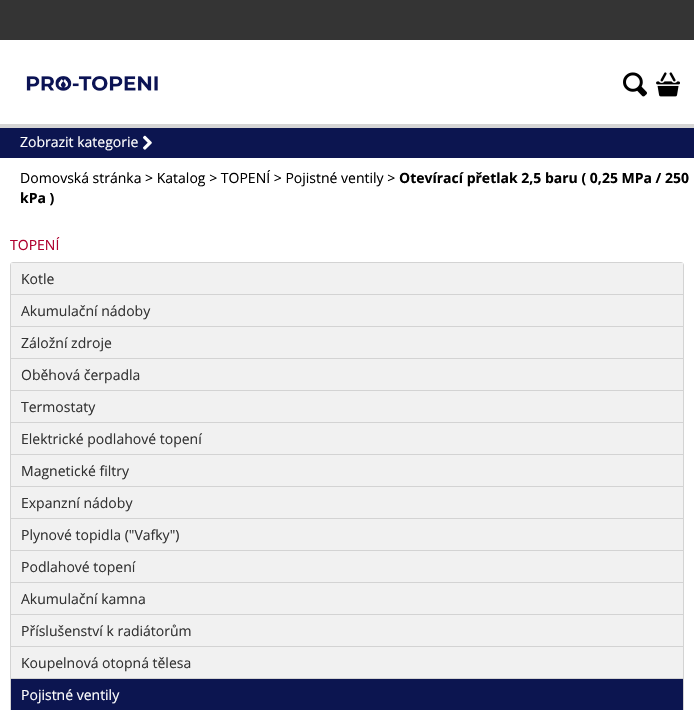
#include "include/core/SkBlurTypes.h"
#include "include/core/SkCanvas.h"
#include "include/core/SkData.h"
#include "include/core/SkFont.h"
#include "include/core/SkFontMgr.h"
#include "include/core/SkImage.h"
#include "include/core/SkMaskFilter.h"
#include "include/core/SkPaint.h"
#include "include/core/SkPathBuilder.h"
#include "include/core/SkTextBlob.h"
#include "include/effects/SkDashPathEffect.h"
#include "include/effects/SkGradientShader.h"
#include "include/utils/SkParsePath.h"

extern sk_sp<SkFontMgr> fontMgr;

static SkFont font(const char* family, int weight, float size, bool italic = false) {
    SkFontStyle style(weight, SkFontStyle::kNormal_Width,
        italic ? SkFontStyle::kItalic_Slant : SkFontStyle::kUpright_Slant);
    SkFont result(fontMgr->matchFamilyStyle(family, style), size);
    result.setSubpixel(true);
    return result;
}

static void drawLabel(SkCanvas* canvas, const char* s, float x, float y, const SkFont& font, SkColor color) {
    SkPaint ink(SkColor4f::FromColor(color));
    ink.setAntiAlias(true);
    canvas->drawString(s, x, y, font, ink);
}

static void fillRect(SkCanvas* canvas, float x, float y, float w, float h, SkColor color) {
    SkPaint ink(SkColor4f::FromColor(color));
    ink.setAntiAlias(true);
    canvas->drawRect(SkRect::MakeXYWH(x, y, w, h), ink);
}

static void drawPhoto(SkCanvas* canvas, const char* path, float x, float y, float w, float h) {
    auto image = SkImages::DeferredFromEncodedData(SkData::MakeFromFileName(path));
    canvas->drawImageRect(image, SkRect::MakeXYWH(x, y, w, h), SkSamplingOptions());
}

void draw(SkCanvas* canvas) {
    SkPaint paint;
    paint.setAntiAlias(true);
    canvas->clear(0xFFFFFFFF);
    fillRect(canvas, 0, 0, 694, 40, 0xFF343434);
    drawPhoto(canvas, "assets/img1.png", 26, 76, 132, 15);
    drawPhoto(canvas, "assets/img2.png", 623, 72, 24, 25);
    drawPhoto(canvas, "assets/img3.png", 656, 72, 24, 25);
    fillRect(canvas, 0, 128, 694, 30, 0xFF0C1550);
    fillRect(canvas, 0, 124, 694, 4, 0xFFD5D5D5);
    SkFont font1 = font("Open Sans", 400, 14);
    drawLabel(canvas, "Zobrazit kategorie", 20, 147, font1, 0xFFFFFFFF);
    drawPhoto(canvas, "assets/img4.png", 143, 135, 9, 15);
    drawLabel(canvas, "Domovská stránka > Katalog > TOPENÍ > Pojistné ventily >", 20, 183, font1, 0xFF000000);
    SkFont font2 = font("Open Sans", 700, 14);
    drawLabel(canvas, "Otevírací přetlak 2,5 baru ( 0,25 MPa / 250", 399, 183, font2, 0xFF000000);
    drawLabel(canvas, "kPa )", 20, 203, font2, 0xFF000000);
    drawLabel(canvas, "TOPENÍ", 10, 250, font1, 0xFFAF002F);
    paint.setStroke(true);
    paint.setStrokeWidth(1);
    paint.setColor(0xFFD3D3D3);
    canvas->drawRoundRect(SkRect::MakeXYWH(10.5f, 262.5f, 673, 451), 2.5f, 2.5f, paint);
    fillRect(canvas, 11, 263, 672, 31, 0xFFF1F1F1);
    fillRect(canvas, 11, 294, 672, 1, 0xFFD3D3D3);
    drawLabel(canvas, "Kotle", 21, 284, font1, 0xFF333333);
    fillRect(canvas, 11, 295, 672, 31, 0xFFF1F1F1);
    fillRect(canvas, 11, 326, 672, 1, 0xFFD3D3D3);
    drawLabel(canvas, "Akumulační nádoby", 21, 316, font1, 0xFF333333);
    fillRect(canvas, 11, 327, 672, 31, 0xFFF1F1F1);
    fillRect(canvas, 11, 358, 672, 1, 0xFFD3D3D3);
    drawLabel(canvas, "Záložní zdroje", 21, 348, font1, 0xFF333333);
    fillRect(canvas, 11, 359, 672, 31, 0xFFF1F1F1);
    fillRect(canvas, 11, 390, 672, 1, 0xFFD3D3D3);
    drawLabel(canvas, "Oběhová čerpadla", 21, 380, font1, 0xFF333333);
    fillRect(canvas, 11, 391, 672, 31, 0xFFF1F1F1);
    fillRect(canvas, 11, 422, 672, 1, 0xFFD3D3D3);
    drawLabel(canvas, "Termostaty", 21, 412, font1, 0xFF333333);
    fillRect(canvas, 11, 423, 672, 31, 0xFFF1F1F1);
    fillRect(canvas, 11, 454, 672, 1, 0xFFD3D3D3);
    drawLabel(canvas, "Elektrické podlahové topení", 21, 444, font1, 0xFF333333);
    fillRect(canvas, 11, 455, 672, 31, 0xFFF1F1F1);
    fillRect(canvas, 11, 486, 672, 1, 0xFFD3D3D3);
    drawLabel(canvas, "Magnetické filtry", 21, 476, font1, 0xFF333333);
    fillRect(canvas, 11, 487, 672, 31, 0xFFF1F1F1);
    fillRect(canvas, 11, 518, 672, 1, 0xFFD3D3D3);
    drawLabel(canvas, "Expanzní nádoby", 21, 508, font1, 0xFF333333);
    fillRect(canvas, 11, 519, 672, 31, 0xFFF1F1F1);
    fillRect(canvas, 11, 550, 672, 1, 0xFFD3D3D3);
    drawLabel(canvas, "Plynové topidla (\"Vafky\")", 21, 540, font1, 0xFF333333);
    fillRect(canvas, 11, 551, 672, 31, 0xFFF1F1F1);
    fillRect(canvas, 11, 582, 672, 1, 0xFFD3D3D3);
    drawLabel(canvas, "Podlahové topení", 21, 572, font1, 0xFF333333);
    fillRect(canvas, 11, 583, 672, 31, 0xFFF1F1F1);
    fillRect(canvas, 11, 614, 672, 1, 0xFFD3D3D3);
    drawLabel(canvas, "Akumulační kamna", 21, 604, font1, 0xFF333333);
    fillRect(canvas, 11, 615, 672, 31, 0xFFF1F1F1);
    fillRect(canvas, 11, 646, 672, 1, 0xFFD3D3D3);
    drawLabel(canvas, "Příslušenství k radiátorům", 21, 636, font1, 0xFF333333);
    fillRect(canvas, 11, 647, 672, 31, 0xFFF1F1F1);
    fillRect(canvas, 11, 678, 672, 1, 0xFFD3D3D3);
    drawLabel(canvas, "Koupelnová otopná tělesa", 21, 668, font1, 0xFF333333);
    fillRect(canvas, 11, 679, 672, 31, 0xFF0C1550);
    drawLabel(canvas, "Pojistné ventily", 21, 700, font1, 0xFFFFFFFF);
}
